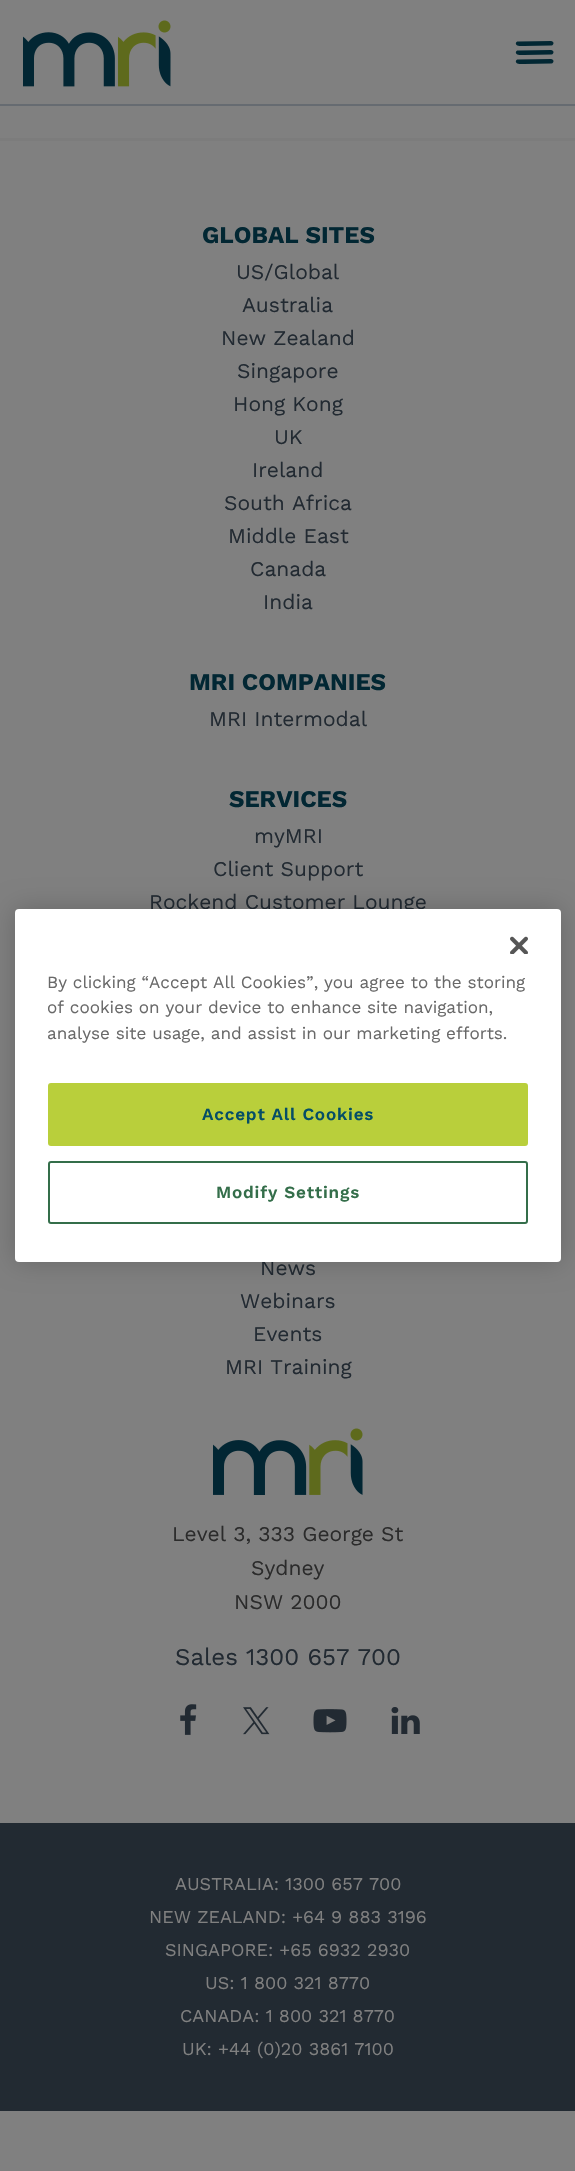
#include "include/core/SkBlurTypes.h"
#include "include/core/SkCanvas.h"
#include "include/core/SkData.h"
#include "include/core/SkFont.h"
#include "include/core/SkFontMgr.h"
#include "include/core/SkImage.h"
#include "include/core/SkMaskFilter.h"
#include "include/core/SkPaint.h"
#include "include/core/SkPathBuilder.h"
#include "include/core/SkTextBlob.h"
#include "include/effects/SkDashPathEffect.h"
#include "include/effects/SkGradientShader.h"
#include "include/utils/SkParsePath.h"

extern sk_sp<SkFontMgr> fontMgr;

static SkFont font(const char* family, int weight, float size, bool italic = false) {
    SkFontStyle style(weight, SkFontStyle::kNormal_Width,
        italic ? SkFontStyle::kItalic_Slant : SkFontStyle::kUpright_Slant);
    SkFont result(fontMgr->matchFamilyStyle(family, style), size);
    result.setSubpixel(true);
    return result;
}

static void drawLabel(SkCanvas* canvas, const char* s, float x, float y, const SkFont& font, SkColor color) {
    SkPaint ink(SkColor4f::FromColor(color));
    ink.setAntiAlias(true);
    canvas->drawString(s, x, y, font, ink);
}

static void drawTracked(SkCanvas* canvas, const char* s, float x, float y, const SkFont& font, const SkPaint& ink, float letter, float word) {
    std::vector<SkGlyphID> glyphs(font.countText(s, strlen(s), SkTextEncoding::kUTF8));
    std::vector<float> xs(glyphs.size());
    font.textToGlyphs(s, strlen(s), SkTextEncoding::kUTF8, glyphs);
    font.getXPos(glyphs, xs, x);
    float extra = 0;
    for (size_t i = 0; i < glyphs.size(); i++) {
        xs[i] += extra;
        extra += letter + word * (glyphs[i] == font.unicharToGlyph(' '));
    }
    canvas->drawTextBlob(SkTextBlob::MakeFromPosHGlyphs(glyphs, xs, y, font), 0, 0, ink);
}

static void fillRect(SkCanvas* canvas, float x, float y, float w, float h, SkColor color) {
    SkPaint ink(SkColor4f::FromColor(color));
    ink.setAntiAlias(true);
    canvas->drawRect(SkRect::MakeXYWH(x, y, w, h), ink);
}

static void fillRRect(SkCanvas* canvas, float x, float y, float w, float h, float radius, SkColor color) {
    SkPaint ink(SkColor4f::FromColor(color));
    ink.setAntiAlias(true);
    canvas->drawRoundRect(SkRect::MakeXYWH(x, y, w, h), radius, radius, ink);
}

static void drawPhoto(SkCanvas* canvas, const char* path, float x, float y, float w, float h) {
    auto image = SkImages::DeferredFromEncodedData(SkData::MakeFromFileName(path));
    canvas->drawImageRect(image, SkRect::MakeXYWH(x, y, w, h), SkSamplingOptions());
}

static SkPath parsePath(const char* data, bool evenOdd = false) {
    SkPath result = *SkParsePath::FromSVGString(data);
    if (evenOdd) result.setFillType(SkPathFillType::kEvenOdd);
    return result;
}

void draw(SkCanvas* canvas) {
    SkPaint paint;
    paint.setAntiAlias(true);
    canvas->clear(0xFF808080);
    fillRect(canvas, 0, 104, 575, 2, 0xFF666B71);
    drawPhoto(canvas, "assets/img1.png", 23, 20, 148, 67);
    paint.setColor(0xFF022733);
    canvas->drawPath(parsePath("M551 41L518 41.5C517 41.5 516.5 42 516 42.5C514.5 47 523 46 524 46L551.5 45.5C554.5 45 554 41 551 41ZM551 50L518 50.5C517 50.5 516.5 51 516 51.5C514.5 56 523 55 524 55L551.5 54.5C554.5 54 554 50 551 50ZM551 59L518 59.5C517 59.5 516.5 60 516 60.5C514.5 65 523 64 524 64L551.5 63.5C554.5 63 554 59 551 59Z"), paint);
    fillRect(canvas, 0, 138, 575, 3, 0xFF7C7C7C);
    SkFont font1 = font("Work Sans", 700, 24);
    drawLabel(canvas, "GLOBAL SITES", 202, 243, font1, 0xFF022733);
    SkFont font2 = font("Work Sans", 400, 21);
    drawLabel(canvas, "US/Global", 236, 279, font2, 0xFF222A32);
    drawLabel(canvas, "Australia", 242, 312, font2, 0xFF222A32);
    drawLabel(canvas, "New Zealand", 221, 345, font2, 0xFF222A32);
    drawLabel(canvas, "Singapore", 237, 378, font2, 0xFF222A32);
    drawLabel(canvas, "Hong Kong", 233, 411, font2, 0xFF222A32);
    drawLabel(canvas, "UK", 274, 444, font2, 0xFF222A32);
    drawLabel(canvas, "Ireland", 252, 477, font2, 0xFF222A32);
    drawLabel(canvas, "South Africa", 224, 510, font2, 0xFF222A32);
    drawLabel(canvas, "Middle East", 228, 543, font2, 0xFF222A32);
    drawLabel(canvas, "Canada", 250, 576, font2, 0xFF222A32);
    drawLabel(canvas, "India", 263, 609, font2, 0xFF222A32);
    drawLabel(canvas, "MRI COMPANIES", 189, 690, font1, 0xFF022733);
    drawLabel(canvas, "MRI Intermodal", 209, 726, font2, 0xFF222A32);
    drawLabel(canvas, "SERVICES", 229, 807, font1, 0xFF022733);
    drawLabel(canvas, "myMRI", 254, 843, font2, 0xFF222A32);
    drawLabel(canvas, "Client Support", 213, 876, font2, 0xFF222A32);
    drawLabel(canvas, "Rockend Customer Lounge", 149, 909, font2, 0xFF222A32);
    drawLabel(canvas, "News", 260, 1275, font2, 0xFF222A32);
    drawLabel(canvas, "Webinars", 240, 1308, font2, 0xFF222A32);
    drawLabel(canvas, "Events", 253, 1341, font2, 0xFF222A32);
    drawLabel(canvas, "MRI Training", 225, 1374, font2, 0xFF222A32);
    drawPhoto(canvas, "assets/img2.png", 213, 1428, 150, 67);
    drawLabel(canvas, "Level 3, 333 George St", 172, 1541, font2, 0xFF2B2B2B);
    drawLabel(canvas, "Sydney", 251, 1575, font2, 0xFF2B2B2B);
    drawLabel(canvas, "NSW 2000", 234, 1609, font2, 0xFF2B2B2B);
    SkFont font3 = font("Work Sans", 400, 24);
    drawLabel(canvas, "Sales 1300 657 700", 175, 1665, font3, 0xFF222A32);
    drawPhoto(canvas, "assets/img3.png", 180, 1704, 17, 31);
    drawPhoto(canvas, "assets/img4.png", 243, 1707, 27, 28);
    drawPhoto(canvas, "assets/img5.png", 313, 1709, 34, 24);
    drawPhoto(canvas, "assets/img6.png", 391, 1707, 29, 27);
    fillRect(canvas, 0, 1823, 575, 288, 0xFF222A32);
    SkFont font4 = font("Work Sans", 400, 18);
    drawLabel(canvas, "AUSTRALIA: 1300 657 700", 175, 1890, font4, 0xFF808080);
    drawLabel(canvas, "NEW ZEALAND: +64 9 883 3196", 149, 1923, font4, 0xFF808080);
    drawLabel(canvas, "SINGAPORE: +65 6932 2930", 165, 1956, font4, 0xFF808080);
    drawLabel(canvas, "US: 1 800 321 8770", 205, 1989, font4, 0xFF808080);
    drawLabel(canvas, "CANADA: 1 800 321 8770", 180, 2022, font4, 0xFF808080);
    drawLabel(canvas, "UK: +44 (0)20 3861 7100", 182, 2055, font4, 0xFF808080);
    paint.setColor(0x33000000);
    paint.setMaskFilter(SkMaskFilter::MakeBlur(kNormal_SkBlurStyle, 13.5f));
    canvas->drawRoundRect(SkRect::MakeXYWH(15, 909, 546, 353), 4, 4, paint);
    paint.setMaskFilter(nullptr);
    fillRRect(canvas, 15, 909, 546, 353, 4, 0xFFFFFFFF);
    drawPhoto(canvas, "assets/img7.png", 510, 936, 18, 18);
    SkFont font5 = font("Work Sans", 400, 17.1f);
    drawLabel(canvas, "By clicking “Accept All Cookies”, you agree to the storing", 47, 988, font5, 0xFF696969);
    drawLabel(canvas, "of cookies on your device to enhance site navigation,", 47, 1013, font5, 0xFF696969);
    drawLabel(canvas, "analyse site usage, and assist in our marketing efforts.", 47, 1039, font5, 0xFF696969);
    paint.setColor(0xFFB9CF3B);
    canvas->drawRoundRect(SkRect::MakeXYWH(49, 1084, 478, 61), 2, 2, paint);
    paint.setStroke(true);
    paint.setStrokeWidth(2);
    canvas->drawRoundRect(SkRect::MakeXYWH(49, 1084, 478, 61), 2, 2, paint);
    SkFont font6 = font("Work Sans", 600, 17.1f);
    paint.setStroke(false);
    paint.setColor(0xFF054E66);
    drawTracked(canvas, "Accept All Cookies", 202, 1120, font6, paint, 0.8f, 0);
    paint.setStroke(true);
    paint.setColor(0xFF346E4A);
    canvas->drawRoundRect(SkRect::MakeXYWH(49, 1162, 478, 61), 2, 2, paint);
    paint.setStroke(false);
    drawTracked(canvas, "Modify Settings", 216, 1198, font6, paint, 0.8f, 0);
}
